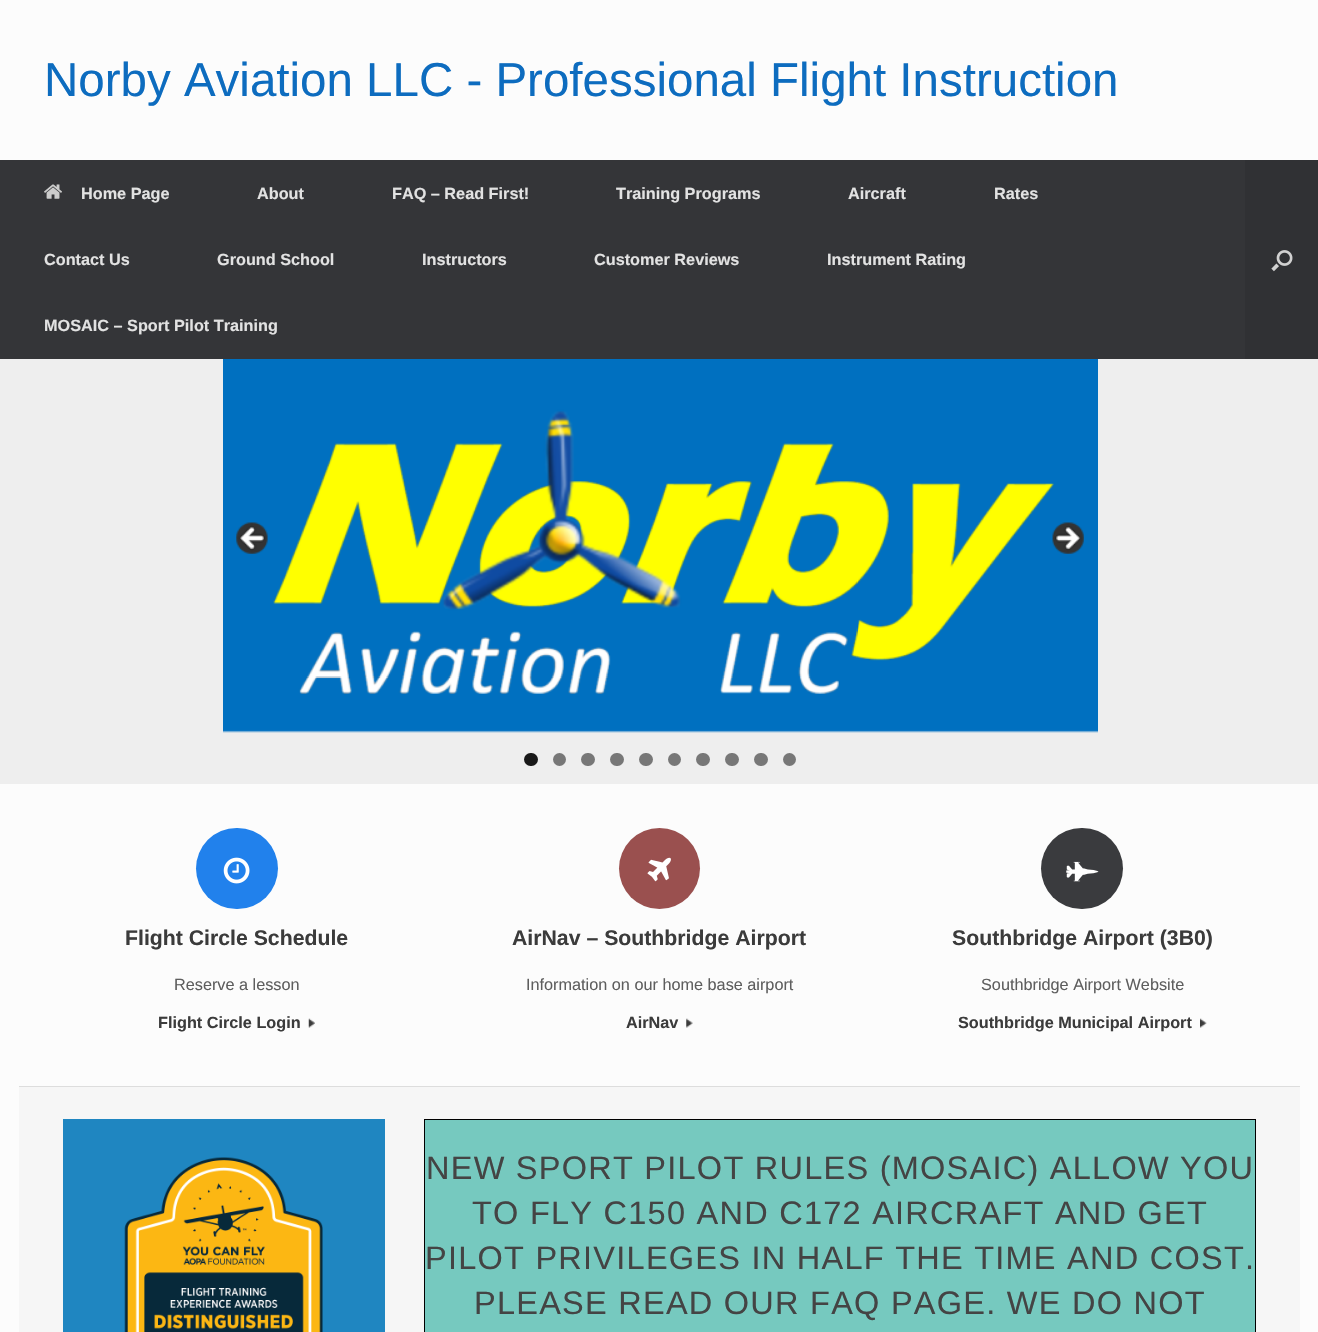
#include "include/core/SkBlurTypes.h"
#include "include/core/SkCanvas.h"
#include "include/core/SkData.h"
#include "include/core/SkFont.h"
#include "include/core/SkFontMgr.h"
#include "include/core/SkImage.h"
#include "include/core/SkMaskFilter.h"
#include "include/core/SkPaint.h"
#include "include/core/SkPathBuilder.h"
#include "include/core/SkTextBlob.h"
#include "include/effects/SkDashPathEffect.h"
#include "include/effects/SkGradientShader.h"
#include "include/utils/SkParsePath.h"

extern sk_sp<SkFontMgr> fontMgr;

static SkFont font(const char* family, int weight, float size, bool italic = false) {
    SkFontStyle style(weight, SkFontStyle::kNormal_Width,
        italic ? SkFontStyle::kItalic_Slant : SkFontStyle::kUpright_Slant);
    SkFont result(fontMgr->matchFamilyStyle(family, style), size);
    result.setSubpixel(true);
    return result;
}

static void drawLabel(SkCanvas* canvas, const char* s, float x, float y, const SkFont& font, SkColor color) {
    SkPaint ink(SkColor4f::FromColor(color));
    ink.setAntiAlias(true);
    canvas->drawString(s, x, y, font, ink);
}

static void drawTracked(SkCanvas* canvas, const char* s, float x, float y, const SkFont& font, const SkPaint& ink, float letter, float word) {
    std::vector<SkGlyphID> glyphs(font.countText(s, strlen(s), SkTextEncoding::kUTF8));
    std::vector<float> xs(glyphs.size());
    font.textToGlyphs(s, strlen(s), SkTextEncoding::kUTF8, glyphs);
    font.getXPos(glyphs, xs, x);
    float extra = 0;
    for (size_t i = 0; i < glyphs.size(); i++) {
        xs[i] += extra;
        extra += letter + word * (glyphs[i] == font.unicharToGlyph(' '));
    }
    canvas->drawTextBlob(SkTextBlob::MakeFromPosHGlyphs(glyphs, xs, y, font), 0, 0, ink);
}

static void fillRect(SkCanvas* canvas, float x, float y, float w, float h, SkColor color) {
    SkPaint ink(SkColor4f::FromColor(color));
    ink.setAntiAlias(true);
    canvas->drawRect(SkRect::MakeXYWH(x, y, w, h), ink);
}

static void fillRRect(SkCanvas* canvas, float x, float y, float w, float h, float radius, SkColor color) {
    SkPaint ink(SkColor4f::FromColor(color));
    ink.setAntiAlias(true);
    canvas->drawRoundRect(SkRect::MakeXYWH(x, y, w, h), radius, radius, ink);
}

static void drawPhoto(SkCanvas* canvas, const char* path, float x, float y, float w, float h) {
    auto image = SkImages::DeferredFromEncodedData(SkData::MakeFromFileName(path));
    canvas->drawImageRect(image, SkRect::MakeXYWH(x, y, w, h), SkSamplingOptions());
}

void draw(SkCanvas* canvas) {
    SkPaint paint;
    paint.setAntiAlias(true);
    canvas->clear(0xFFFCFCFC);
    SkFont font1 = font("Liberation Sans", 400, 47.5f);
    drawLabel(canvas, "Norby Aviation LLC - Professional Flight Instruction", 44, 96, font1, 0xFF0D6CBF);
    fillRect(canvas, 0, 160, 1245, 199, 0xFF343538);
    drawPhoto(canvas, "assets/img1.png", 44, 184, 18, 15);
    SkFont font2 = font("Liberation Sans", 700, 16.25f);
    drawLabel(canvas, "Home Page", 81, 199, font2, 0xFFE2E2E2);
    drawLabel(canvas, "About", 257, 199, font2, 0xFFE2E2E2);
    drawLabel(canvas, "FAQ – Read First!", 392, 199, font2, 0xFFE2E2E2);
    drawLabel(canvas, "Training Programs", 616, 199, font2, 0xFFE2E2E2);
    drawLabel(canvas, "Aircraft", 848, 199, font2, 0xFFE2E2E2);
    drawLabel(canvas, "Rates", 994, 199, font2, 0xFFE2E2E2);
    drawLabel(canvas, "Contact Us", 44, 265, font2, 0xFFE2E2E2);
    drawLabel(canvas, "Ground School", 217, 265, font2, 0xFFE2E2E2);
    drawLabel(canvas, "Instructors", 422, 265, font2, 0xFFE2E2E2);
    drawLabel(canvas, "Customer Reviews", 594, 265, font2, 0xFFE2E2E2);
    drawLabel(canvas, "Instrument Rating", 827, 265, font2, 0xFFE2E2E2);
    drawLabel(canvas, "MOSAIC – Sport Pilot Training", 44, 331, font2, 0xFFE2E2E2);
    fillRect(canvas, 1245, 160, 73, 199, 0xFF303134);
    drawPhoto(canvas, "assets/img2.png", 1271, 250, 22, 22);
    fillRect(canvas, 0, 359, 1318, 425, 0xFFEEEEEE);
    drawPhoto(canvas, "assets/img3.png", 223, 359, 875, 374);
    drawPhoto(canvas, "assets/img4.png", 236, 522, 32, 32);
    drawPhoto(canvas, "assets/img5.png", 1052, 522, 32, 32);
    fillRRect(canvas, 524, 753, 14, 13, 6.5f, 0xFF181818);
    paint.setColor(0xFF777777);
    canvas->drawCircle(559.5f, 759.5f, 6.5f, paint);
    fillRRect(canvas, 581, 753, 14, 13, 6.5f, 0xFF777777);
    fillRRect(canvas, 610, 753, 14, 13, 6.5f, 0xFF777777);
    fillRRect(canvas, 639, 753, 14, 13, 6.5f, 0xFF777777);
    canvas->drawCircle(674.5f, 759.5f, 6.5f, paint);
    fillRRect(canvas, 696, 753, 14, 13, 6.5f, 0xFF777777);
    fillRRect(canvas, 725, 753, 14, 13, 6.5f, 0xFF777777);
    fillRRect(canvas, 754, 753, 14, 13, 6.5f, 0xFF777777);
    canvas->drawCircle(789.5f, 759.5f, 6.5f, paint);
    fillRRect(canvas, 196, 828, 82, 81, 40.5f, 0xFF2181EC);
    drawPhoto(canvas, "assets/img6.png", 223, 857, 27, 27);
    SkFont font3 = font("Liberation Sans", 700, 21.25f);
    drawLabel(canvas, "Flight Circle Schedule", 125, 945, font3, 0xFF3B3B3B);
    SkFont font4 = font("Liberation Sans", 400, 16.25f);
    drawLabel(canvas, "Reserve a lesson", 174, 990, font4, 0xFF5E5E5E);
    drawLabel(canvas, "Flight Circle Login", 158, 1028, font2, 0xFF3B3B3B);
    drawPhoto(canvas, "assets/img7.png", 308, 1018, 7, 10);
    paint.setColor(0xFF9A504F);
    canvas->drawCircle(659.5f, 868.5f, 40.5f, paint);
    drawPhoto(canvas, "assets/img8.png", 647, 857, 24, 25);
    drawLabel(canvas, "AirNav – Southbridge Airport", 512, 945, font3, 0xFF3B3B3B);
    drawLabel(canvas, "Information on our home base airport", 526, 990, font4, 0xFF5E5E5E);
    drawLabel(canvas, "AirNav", 626, 1028, font2, 0xFF3B3B3B);
    drawPhoto(canvas, "assets/img9.png", 686, 1018, 7, 10);
    fillRRect(canvas, 1041, 828, 82, 81, 40.5f, 0xFF3A3B3E);
    drawPhoto(canvas, "assets/img10.png", 1066, 861, 33, 21);
    drawLabel(canvas, "Southbridge Airport (3B0)", 952, 945, font3, 0xFF3B3B3B);
    drawLabel(canvas, "Southbridge Airport Website", 981, 990, font4, 0xFF5E5E5E);
    drawLabel(canvas, "Southbridge Municipal Airport", 958, 1028, font2, 0xFF3B3B3B);
    drawPhoto(canvas, "assets/img11.png", 1200, 1018, 7, 10);
    fillRect(canvas, 19, 1087, 1281, 245, 0xFFF6F6F6);
    fillRect(canvas, 19, 1086, 1281, 1, 0xFFDDDDDD);
    fillRect(canvas, 63, 1119, 322, 213, 0xFF1F86C1);
    drawPhoto(canvas, "assets/img12.png", 124, 1157, 199, 175);
    paint.setColor(0xFF76C9BF);
    canvas->drawRect(SkRect::MakeXYWH(424.5f, 1119.5f, 831, 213), paint);
    paint.setStroke(true);
    paint.setStrokeWidth(1);
    paint.setColor(0xFF000000);
    canvas->drawRect(SkRect::MakeXYWH(424.5f, 1119.5f, 831, 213), paint);
    SkFont font5 = font("Liberation Sans", 400, 32.5f);
    paint.setStroke(false);
    paint.setColor(0xFF444444);
    drawTracked(canvas, "NEW SPORT PILOT RULES (MOSAIC) ALLOW YOU", 426, 1179, font5, paint, 1.25f, 0);
    drawTracked(canvas, "TO FLY C150 AND C172 AIRCRAFT AND GET", 472, 1224, font5, paint, 1.25f, 0);
    drawTracked(canvas, "PILOT PRIVILEGES IN HALF THE TIME AND COST.", 425, 1269, font5, paint, 1.25f, 0);
    drawTracked(canvas, "PLEASE READ OUR FAQ PAGE. WE DO NOT", 474, 1314, font5, paint, 1.25f, 0);
}
